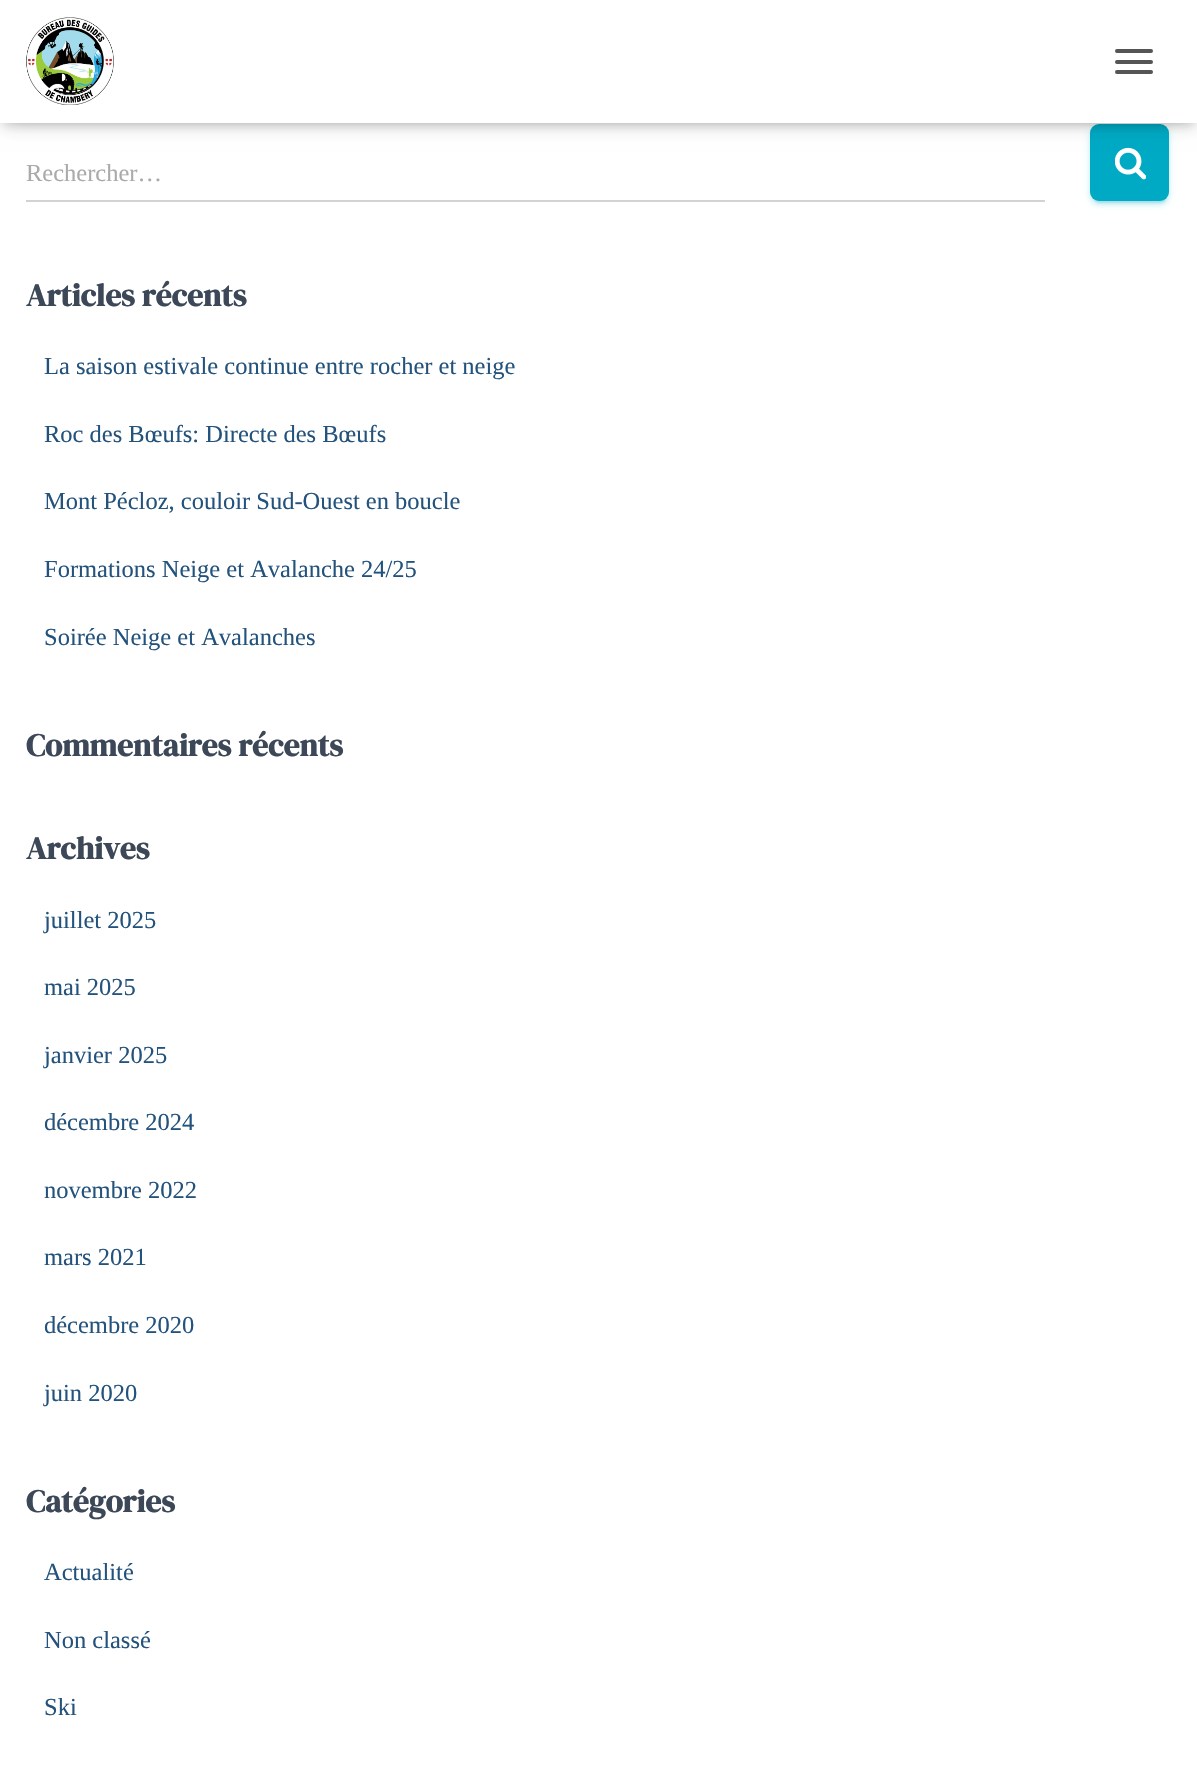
#include "include/core/SkBlurTypes.h"
#include "include/core/SkCanvas.h"
#include "include/core/SkData.h"
#include "include/core/SkFont.h"
#include "include/core/SkFontMgr.h"
#include "include/core/SkImage.h"
#include "include/core/SkMaskFilter.h"
#include "include/core/SkPaint.h"
#include "include/core/SkPathBuilder.h"
#include "include/core/SkTextBlob.h"
#include "include/effects/SkDashPathEffect.h"
#include "include/effects/SkGradientShader.h"
#include "include/utils/SkParsePath.h"

extern sk_sp<SkFontMgr> fontMgr;

static SkFont font(const char* family, int weight, float size, bool italic = false) {
    SkFontStyle style(weight, SkFontStyle::kNormal_Width,
        italic ? SkFontStyle::kItalic_Slant : SkFontStyle::kUpright_Slant);
    SkFont result(fontMgr->matchFamilyStyle(family, style), size);
    result.setSubpixel(true);
    return result;
}

static void drawLabel(SkCanvas* canvas, const char* s, float x, float y, const SkFont& font, SkColor color) {
    SkPaint ink(SkColor4f::FromColor(color));
    ink.setAntiAlias(true);
    canvas->drawString(s, x, y, font, ink);
}

static void fillRect(SkCanvas* canvas, float x, float y, float w, float h, SkColor color) {
    SkPaint ink(SkColor4f::FromColor(color));
    ink.setAntiAlias(true);
    canvas->drawRect(SkRect::MakeXYWH(x, y, w, h), ink);
}

static void fillRRect(SkCanvas* canvas, float x, float y, float w, float h, float radius, SkColor color) {
    SkPaint ink(SkColor4f::FromColor(color));
    ink.setAntiAlias(true);
    canvas->drawRoundRect(SkRect::MakeXYWH(x, y, w, h), radius, radius, ink);
}

static void drawPhoto(SkCanvas* canvas, const char* path, float x, float y, float w, float h) {
    auto image = SkImages::DeferredFromEncodedData(SkData::MakeFromFileName(path));
    canvas->drawImageRect(image, SkRect::MakeXYWH(x, y, w, h), SkSamplingOptions());
}

void draw(SkCanvas* canvas) {
    SkPaint paint;
    paint.setAntiAlias(true);
    canvas->clear(0xFFFFFFFF);
    paint.setColor(0x1F00AAC4);
    paint.setMaskFilter(SkMaskFilter::MakeBlur(kNormal_SkBlurStyle, 4.5f));
    canvas->drawRoundRect(SkRect::MakeXYWH(1090, 126, 79, 77), 9, 9, paint);
    paint.setMaskFilter(nullptr);
    paint.setColor(0x3300AAC4);
    paint.setMaskFilter(SkMaskFilter::MakeBlur(kNormal_SkBlurStyle, 1));
    canvas->drawRoundRect(SkRect::MakeXYWH(1094, 133, 72, 70), 5, 5, paint);
    paint.setMaskFilter(nullptr);
    paint.setColor(0x2400AAC4);
    paint.setMaskFilter(SkMaskFilter::MakeBlur(kNormal_SkBlurStyle, 2));
    canvas->drawRoundRect(SkRect::MakeXYWH(1090, 128, 79, 77), 9, 9, paint);
    paint.setMaskFilter(nullptr);
    fillRRect(canvas, 1090, 124, 79, 77, 9, 0xFF00AAC4);
    paint.setColor(0x1A000000);
    paint.setMaskFilter(SkMaskFilter::MakeBlur(kNormal_SkBlurStyle, 4.5f));
    canvas->drawRect(SkRect::MakeXYWH(4, 11, 1190, 115), paint);
    paint.setMaskFilter(nullptr);
    drawPhoto(canvas, "assets/img2.png", 1115, 147, 31, 33);
    paint.setColor(0x1F000000);
    paint.setMaskFilter(SkMaskFilter::MakeBlur(kNormal_SkBlurStyle, 9));
    canvas->drawRect(SkRect::MakeXYWH(0, 2, 1197, 122), paint);
    paint.setMaskFilter(nullptr);
    paint.setColor(0x6B000000);
    paint.setMaskFilter(SkMaskFilter::MakeBlur(kNormal_SkBlurStyle, 9));
    canvas->drawRect(SkRect::MakeXYWH(11, 12, 1176, 102), paint);
    paint.setMaskFilter(nullptr);
    fillRect(canvas, 0, 0, 1197, 123, 0xFFFFFFFF);
    drawPhoto(canvas, "assets/img1.png", 26, 17, 88, 88);
    fillRRect(canvas, 1115, 49, 38, 4, 2, 0xFF555555);
    fillRRect(canvas, 1115, 60, 38, 4, 2, 0xFF555555);
    fillRRect(canvas, 1115, 70, 38, 4, 2, 0xFF555555);
    SkFont font1 = font("Liberation Serif", 400, 24.5f);
    drawLabel(canvas, "Rechercher…", 26, 181, font1, 0xFFAAAAAA);
    fillRect(canvas, 26, 200, 1019, 2, 0xFFD2D2D2);
    SkFont font2 = font("DM Serif Display", 700, 31.5f);
    drawLabel(canvas, "Articles récents", 26, 306, font2, 0xFF3C4858);
    drawLabel(canvas, "La saison estivale continue entre rocher et neige", 44, 374, font1, 0xFF23527C);
    drawLabel(canvas, "Roc des Bœufs: Directe des Bœufs", 44, 442, font1, 0xFF23527C);
    drawLabel(canvas, "Mont Pécloz, couloir Sud-Ouest en boucle", 44, 509, font1, 0xFF23527C);
    drawLabel(canvas, "Formations Neige et Avalanche 24/25", 44, 577, font1, 0xFF23527C);
    drawLabel(canvas, "Soirée Neige et Avalanches", 44, 645, font1, 0xFF23527C);
    drawLabel(canvas, "Commentaires récents", 26, 756, font2, 0xFF3C4858);
    drawLabel(canvas, "Archives", 26, 859, font2, 0xFF3C4858);
    drawLabel(canvas, "juillet 2025", 44, 928, font1, 0xFF23527C);
    drawLabel(canvas, "mai 2025", 44, 995, font1, 0xFF23527C);
    drawLabel(canvas, "janvier 2025", 44, 1063, font1, 0xFF23527C);
    drawLabel(canvas, "décembre 2024", 44, 1130, font1, 0xFF23527C);
    drawLabel(canvas, "novembre 2022", 44, 1198, font1, 0xFF23527C);
    drawLabel(canvas, "mars 2021", 44, 1265, font1, 0xFF23527C);
    drawLabel(canvas, "décembre 2020", 44, 1333, font1, 0xFF23527C);
    drawLabel(canvas, "juin 2020", 44, 1401, font1, 0xFF23527C);
    drawLabel(canvas, "Catégories", 26, 1512, font2, 0xFF3C4858);
    drawLabel(canvas, "Actualité", 44, 1580, font1, 0xFF23527C);
    drawLabel(canvas, "Non classé", 44, 1648, font1, 0xFF23527C);
    drawLabel(canvas, "Ski", 44, 1715, font1, 0xFF23527C);
}
